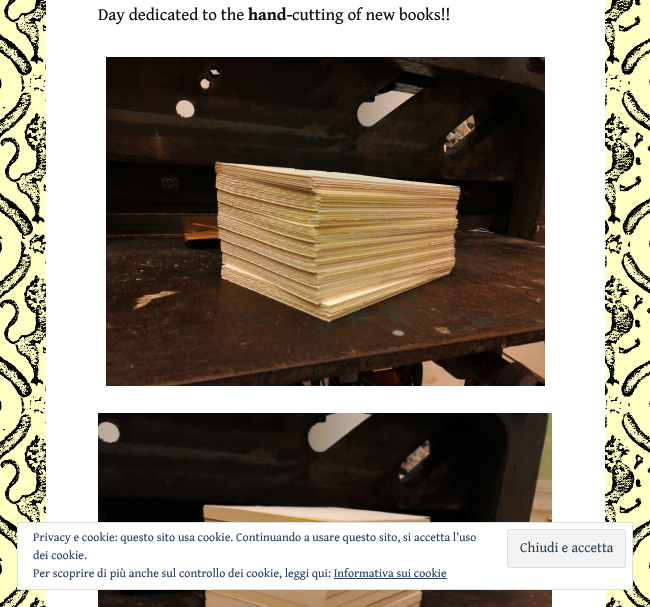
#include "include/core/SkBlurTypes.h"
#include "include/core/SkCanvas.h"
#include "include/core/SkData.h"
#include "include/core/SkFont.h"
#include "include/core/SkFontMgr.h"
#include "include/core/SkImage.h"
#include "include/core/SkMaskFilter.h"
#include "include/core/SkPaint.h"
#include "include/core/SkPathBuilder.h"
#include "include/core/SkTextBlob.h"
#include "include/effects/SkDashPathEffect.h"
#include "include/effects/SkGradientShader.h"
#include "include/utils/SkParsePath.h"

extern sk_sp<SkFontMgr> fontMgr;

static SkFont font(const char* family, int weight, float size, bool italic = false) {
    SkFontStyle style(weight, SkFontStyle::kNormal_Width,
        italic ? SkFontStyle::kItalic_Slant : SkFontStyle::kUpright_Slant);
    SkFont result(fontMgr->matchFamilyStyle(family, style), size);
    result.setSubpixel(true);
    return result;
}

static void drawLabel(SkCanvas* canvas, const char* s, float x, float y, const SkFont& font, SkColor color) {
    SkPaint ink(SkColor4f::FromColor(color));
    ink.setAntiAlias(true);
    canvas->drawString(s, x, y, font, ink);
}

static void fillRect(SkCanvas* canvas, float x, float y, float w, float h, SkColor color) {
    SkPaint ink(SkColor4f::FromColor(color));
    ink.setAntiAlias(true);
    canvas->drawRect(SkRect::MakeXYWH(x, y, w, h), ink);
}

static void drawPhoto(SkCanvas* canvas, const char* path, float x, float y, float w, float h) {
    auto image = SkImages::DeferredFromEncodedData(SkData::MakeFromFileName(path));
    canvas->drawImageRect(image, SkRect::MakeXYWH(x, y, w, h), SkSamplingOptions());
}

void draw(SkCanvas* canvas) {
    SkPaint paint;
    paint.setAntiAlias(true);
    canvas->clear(0xFFFFFFC4);
    drawPhoto(canvas, "assets/img1.png", 0, 0, 650, 607);
    fillRect(canvas, 46, 0, 559, 607, 0xFFFFFFFF);
    SkFont font1 = font("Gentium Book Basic", 400, 17);
    drawLabel(canvas, "Day dedicated to the", 98, 20, font1, 0xFF111111);
    SkFont font2 = font("Gentium Book Basic", 700, 17);
    drawLabel(canvas, "hand-", 248, 20, font2, 0xFF111111);
    drawLabel(canvas, "cutting of new books!!", 292, 20, font1, 0xFF111111);
    drawPhoto(canvas, "assets/img2.png", 106, 57, 439, 329);
    drawPhoto(canvas, "assets/img3.png", 98, 413, 454, 194);
    paint.setColor(0xFFFFFFFF);
    canvas->drawRect(SkRect::MakeXYWH(17.5f, 522.5f, 615, 67), paint);
    paint.setStroke(true);
    paint.setStrokeWidth(1);
    paint.setColor(0xFFDEDEDE);
    canvas->drawRect(SkRect::MakeXYWH(17.5f, 522.5f, 615, 67), paint);
    SkFont font3 = font("Gentium Book Basic", 400, 12);
    drawLabel(canvas, "Privacy e cookie: questo sito usa cookie. Continuando a usare questo sito, si accetta l’uso", 33, 541, font3, 0xFF2E4467);
    paint.setStroke(false);
    paint.setColor(0xFFF3F3F3);
    canvas->drawRoundRect(SkRect::MakeXYWH(507.5f, 529.5f, 118, 38), 2.5f, 2.5f, paint);
    paint.setStroke(true);
    paint.setColor(0xFFDEDEDE);
    canvas->drawRoundRect(SkRect::MakeXYWH(507.5f, 529.5f, 118, 38), 2.5f, 2.5f, paint);
    SkFont font4 = font("Gentium Book Basic", 400, 14);
    drawLabel(canvas, "Chiudi e accetta", 520, 552, font4, 0xFF2E4453);
    drawLabel(canvas, "dei cookie.", 33, 559, font3, 0xFF2E4467);
    drawLabel(canvas, "Per scoprire di più anche sul controllo dei cookie, leggi qui: Informativa sui cookie", 33, 577, font3, 0xFF2E4467);
    fillRect(canvas, 334, 578, 113, 1, 0xFF2E4467);
}
